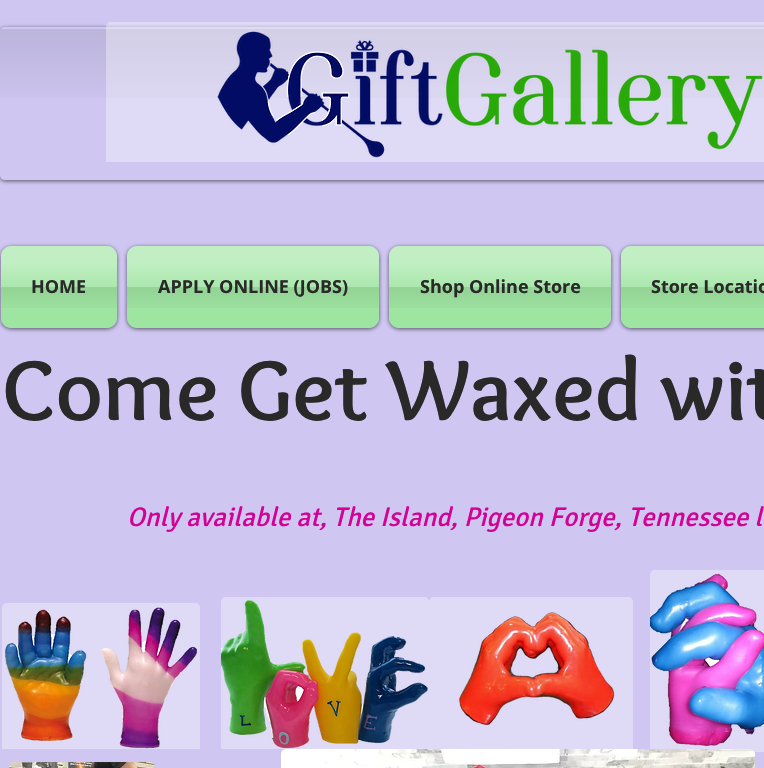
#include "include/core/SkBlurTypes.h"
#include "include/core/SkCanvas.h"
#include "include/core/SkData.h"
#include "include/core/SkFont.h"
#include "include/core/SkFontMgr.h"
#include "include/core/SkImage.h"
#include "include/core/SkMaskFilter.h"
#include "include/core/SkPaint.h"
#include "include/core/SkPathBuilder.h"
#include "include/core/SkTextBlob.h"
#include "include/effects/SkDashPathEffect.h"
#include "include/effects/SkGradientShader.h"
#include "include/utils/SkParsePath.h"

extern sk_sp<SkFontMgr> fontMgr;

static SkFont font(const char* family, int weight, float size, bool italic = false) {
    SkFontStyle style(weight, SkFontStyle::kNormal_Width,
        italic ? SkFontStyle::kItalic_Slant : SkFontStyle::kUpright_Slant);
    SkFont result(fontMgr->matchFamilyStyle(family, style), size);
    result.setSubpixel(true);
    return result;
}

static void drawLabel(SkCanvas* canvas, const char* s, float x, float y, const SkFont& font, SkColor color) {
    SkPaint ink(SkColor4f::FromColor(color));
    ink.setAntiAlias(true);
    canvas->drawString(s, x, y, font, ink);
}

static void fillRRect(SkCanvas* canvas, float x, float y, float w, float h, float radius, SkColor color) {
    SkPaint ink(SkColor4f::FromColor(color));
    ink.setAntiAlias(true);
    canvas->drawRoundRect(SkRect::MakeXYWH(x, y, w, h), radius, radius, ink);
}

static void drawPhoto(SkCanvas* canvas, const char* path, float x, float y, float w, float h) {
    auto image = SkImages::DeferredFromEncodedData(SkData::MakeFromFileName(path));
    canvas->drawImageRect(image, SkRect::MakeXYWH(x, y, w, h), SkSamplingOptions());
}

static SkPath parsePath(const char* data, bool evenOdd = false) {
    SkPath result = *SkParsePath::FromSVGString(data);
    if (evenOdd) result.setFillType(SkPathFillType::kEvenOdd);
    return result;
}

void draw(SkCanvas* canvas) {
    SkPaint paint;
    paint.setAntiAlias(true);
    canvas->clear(0xFFCFC7F2);
    canvas->save();
    canvas->clipPath(parsePath("M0 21H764V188H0ZM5 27H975C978 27 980 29 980 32V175C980 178 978 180 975 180H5C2 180 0 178 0 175V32C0 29 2 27 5 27Z", true), true);
    paint.setColor(0x99000000);
    paint.setMaskFilter(SkMaskFilter::MakeBlur(kNormal_SkBlurStyle, 2));
    canvas->drawRoundRect(SkRect::MakeXYWH(0, 28, 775, 153), 5, 5, paint);
    paint.setMaskFilter(nullptr);
    canvas->restore();
    drawPhoto(canvas, "assets/img1.png", 0, 29, 764, 69);
    paint.setColor(0x61F9F9F9);
    canvas->drawPath(parsePath("M111 22H764C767 22 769 24 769 27V162H106V27C106 24 108 22 111 22Z"), paint);
    drawPhoto(canvas, "assets/img2.png", 217, 31, 546, 127);
    canvas->save();
    canvas->clipPath(parsePath("M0 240H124V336H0ZM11 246H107C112.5 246 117 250.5 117 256V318C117 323.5 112.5 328 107 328H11C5.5 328 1 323.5 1 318V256C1 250.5 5.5 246 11 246Z", true), true);
    paint.setColor(0x99000000);
    paint.setMaskFilter(SkMaskFilter::MakeBlur(kNormal_SkBlurStyle, 2));
    canvas->drawRoundRect(SkRect::MakeXYWH(1, 247, 116, 82), 10, 10, paint);
    paint.setMaskFilter(nullptr);
    canvas->restore();
    fillRRect(canvas, 1, 246, 116, 82, 10, 0x8A77FF5F);
    drawPhoto(canvas, "assets/img3.png", 1, 246, 116, 62);
    SkFont font1 = font("Open Sans", 700, 18);
    drawLabel(canvas, "HOME", 31, 293, font1, 0xFF292929);
    canvas->save();
    canvas->clipPath(parsePath("M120 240H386V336H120ZM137 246H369C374.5 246 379 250.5 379 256V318C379 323.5 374.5 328 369 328H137C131.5 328 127 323.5 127 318V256C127 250.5 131.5 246 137 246Z", true), true);
    paint.setMaskFilter(SkMaskFilter::MakeBlur(kNormal_SkBlurStyle, 2));
    canvas->drawRoundRect(SkRect::MakeXYWH(127, 247, 252, 82), 10, 10, paint);
    paint.setMaskFilter(nullptr);
    canvas->restore();
    fillRRect(canvas, 127, 246, 252, 82, 10, 0x8A77FF5F);
    drawPhoto(canvas, "assets/img4.png", 127, 246, 252, 62);
    drawLabel(canvas, "APPLY ONLINE (JOBS)", 158, 293, font1, 0xFF292929);
    canvas->save();
    canvas->clipPath(parsePath("M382 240H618V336H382ZM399 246H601C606.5 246 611 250.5 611 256V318C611 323.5 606.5 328 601 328H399C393.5 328 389 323.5 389 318V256C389 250.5 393.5 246 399 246Z", true), true);
    paint.setMaskFilter(SkMaskFilter::MakeBlur(kNormal_SkBlurStyle, 2));
    canvas->drawRoundRect(SkRect::MakeXYWH(389, 247, 222, 82), 10, 10, paint);
    paint.setMaskFilter(nullptr);
    canvas->restore();
    fillRRect(canvas, 389, 246, 222, 82, 10, 0x8A77FF5F);
    drawPhoto(canvas, "assets/img5.png", 389, 246, 222, 62);
    drawLabel(canvas, "Shop Online Store", 420, 293, font1, 0xFF292929);
    canvas->save();
    canvas->clipPath(parsePath("M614 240H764V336H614ZM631 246H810C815.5 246 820 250.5 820 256V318C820 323.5 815.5 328 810 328H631C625.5 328 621 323.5 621 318V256C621 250.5 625.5 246 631 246Z", true), true);
    paint.setMaskFilter(SkMaskFilter::MakeBlur(kNormal_SkBlurStyle, 2));
    canvas->drawRoundRect(SkRect::MakeXYWH(621, 247, 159, 82), 10, 10, paint);
    paint.setMaskFilter(nullptr);
    canvas->restore();
    fillRRect(canvas, 621, 246, 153, 82, 10, 0x8A77FF5F);
    drawPhoto(canvas, "assets/img6.png", 621, 246, 143, 62);
    drawLabel(canvas, "Store Locatio", 651, 293, font1, 0xFF292929);
    SkFont font2 = font("Overlock", 700, 88);
    drawLabel(canvas, "Come Get Waxed wit", 2, 420, font2, 0xFF292929);
    SkFont font3 = font("Signika", 400, 27, true);
    drawLabel(canvas, "Only available at, The Island, Pigeon Forge, Tennessee l", 127, 526, font3, 0xFFD30294);
    paint.setColor(0xFFDFDAF5);
    canvas->drawPath(parsePath("M7 603H195C198 603 200 605 200 608V749H2V608C2 605 4 603 7 603Z"), paint);
    drawPhoto(canvas, "assets/img7.png", 5, 607, 192, 142);
    canvas->drawPath(parsePath("M226 597H424C427 597 429 599 429 602V749H221V602C221 599 223 597 226 597Z"), paint);
    drawPhoto(canvas, "assets/img8.png", 221, 600, 207, 149);
    canvas->drawPath(parsePath("M434 597H628C631 597 633 599 633 602V749H429V602C429 599 431 597 434 597Z"), paint);
    drawPhoto(canvas, "assets/img9.png", 459, 612, 156, 114);
    canvas->drawPath(parsePath("M655 570H764C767 570 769 572 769 575V752H650V575C650 572 652 570 655 570Z"), paint);
    drawPhoto(canvas, "assets/img10.png", 650, 573, 114, 174);
    drawPhoto(canvas, "assets/img11.png", 9, 762, 146, 6);
    drawPhoto(canvas, "assets/img12.png", 281, 749, 474, 19);
}
